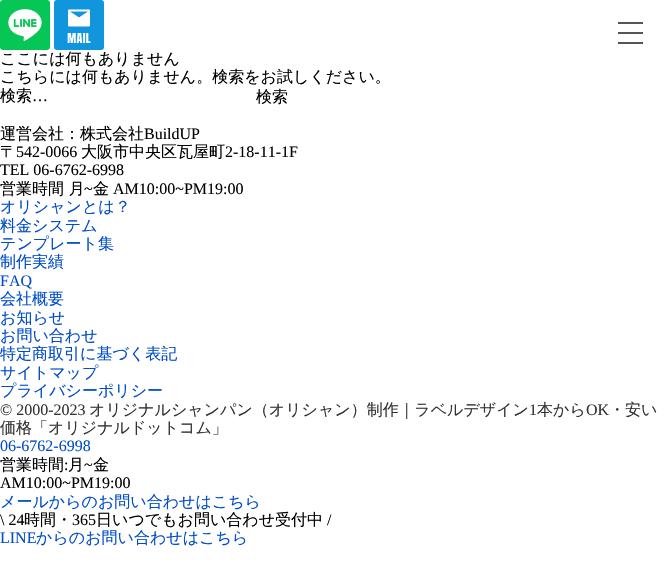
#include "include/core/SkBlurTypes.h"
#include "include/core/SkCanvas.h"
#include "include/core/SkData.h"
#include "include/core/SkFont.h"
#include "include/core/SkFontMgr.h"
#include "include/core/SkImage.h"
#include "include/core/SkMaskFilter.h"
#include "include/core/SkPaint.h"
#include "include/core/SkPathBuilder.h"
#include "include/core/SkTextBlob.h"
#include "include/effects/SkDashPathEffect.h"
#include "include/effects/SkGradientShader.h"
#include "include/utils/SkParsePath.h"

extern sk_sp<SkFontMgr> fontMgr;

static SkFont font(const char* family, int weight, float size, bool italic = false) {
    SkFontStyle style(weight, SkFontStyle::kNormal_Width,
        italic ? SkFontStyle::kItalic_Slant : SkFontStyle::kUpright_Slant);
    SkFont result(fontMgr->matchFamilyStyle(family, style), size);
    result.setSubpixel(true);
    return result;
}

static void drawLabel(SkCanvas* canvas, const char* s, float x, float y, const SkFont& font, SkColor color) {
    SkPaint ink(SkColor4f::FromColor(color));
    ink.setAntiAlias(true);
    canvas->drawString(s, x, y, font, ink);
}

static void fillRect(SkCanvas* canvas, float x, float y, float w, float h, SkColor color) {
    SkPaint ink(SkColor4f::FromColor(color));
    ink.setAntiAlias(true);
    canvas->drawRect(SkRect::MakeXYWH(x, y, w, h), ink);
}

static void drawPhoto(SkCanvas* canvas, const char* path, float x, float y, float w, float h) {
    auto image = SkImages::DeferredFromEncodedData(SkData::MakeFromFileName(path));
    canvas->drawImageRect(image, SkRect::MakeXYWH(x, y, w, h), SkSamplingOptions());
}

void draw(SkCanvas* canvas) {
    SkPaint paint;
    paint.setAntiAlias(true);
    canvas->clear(0xFFFFFFFF);
    drawPhoto(canvas, "assets/img1.png", 0, 0, 50, 50);
    drawPhoto(canvas, "assets/img2.png", 54, 0, 50, 50);
    fillRect(canvas, 618, 22, 25, 2, 0xFF555555);
    fillRect(canvas, 618, 32, 25, 2, 0xFF555555);
    fillRect(canvas, 618, 42, 25, 2, 0xFF555555);
    SkFont font1 = font("WenQuanYi Zen Hei", 500, 16);
    drawLabel(canvas, "ここには何もありません", 0, 64, font1, 0xFF000000);
    drawLabel(canvas, "こちらには何もありません。検索をお試しください。", 0, 82, font1, 0xFF000000);
    drawLabel(canvas, "検索", 0, 101, font1, 0xFF000000);
    SkFont font2 = font("Liberation Serif", 400, 16);
    drawLabel(canvas, "…", 32, 101, font2, 0xFF000000);
    drawLabel(canvas, "検索", 256, 102, font1, 0xFF000000);
    drawLabel(canvas, "運営会社：株式会社", 0, 139, font1, 0xFF000000);
    drawLabel(canvas, "BuildUP", 144, 139, font2, 0xFF000000);
    drawLabel(canvas, "〒", 0, 157, font1, 0xFF000000);
    drawLabel(canvas, "542-0066", 16, 157, font2, 0xFF000000);
    drawLabel(canvas, "大阪市中央区瓦屋町", 81, 157, font1, 0xFF000000);
    drawLabel(canvas, "2-18-11-1F", 225, 157, font2, 0xFF000000);
    drawLabel(canvas, "TEL 06-6762-6998", 0, 175, font2, 0xFF000000);
    drawLabel(canvas, "営業時間 月", 0, 194, font1, 0xFF000000);
    drawLabel(canvas, "~", 84, 194, font2, 0xFF000000);
    drawLabel(canvas, "金", 93, 194, font1, 0xFF000000);
    drawLabel(canvas, "AM10:00~PM19:00", 113, 194, font2, 0xFF000000);
    drawLabel(canvas, "オリシャンとは？", 0, 212, font1, 0xFF004CCA);
    drawLabel(canvas, "料金システム", 0, 231, font1, 0xFF004CCA);
    drawLabel(canvas, "テンプレート集", 0, 249, font1, 0xFF004CCA);
    drawLabel(canvas, "制作実績", 0, 267, font1, 0xFF004CCA);
    drawLabel(canvas, "FAQ", 0, 286, font2, 0xFF004CCA);
    drawLabel(canvas, "会社概要", 0, 304, font1, 0xFF004CCA);
    drawLabel(canvas, "お知らせ", 0, 323, font1, 0xFF004CCA);
    drawLabel(canvas, "お問い合わせ", 0, 341, font1, 0xFF004CCA);
    drawLabel(canvas, "特定商取引に基づく表記", 0, 359, font1, 0xFF004CCA);
    drawLabel(canvas, "サイトマップ", 0, 378, font1, 0xFF004CCA);
    drawLabel(canvas, "プライバシーポリシー", 0, 396, font1, 0xFF004CCA);
    drawLabel(canvas, "© 2000-2023", 0, 415, font2, 0xFF333333);
    drawLabel(canvas, "オリジナルシャンパン（オリシャン）制作｜ラベルデザイン", 89, 415, font1, 0xFF333333);
    drawLabel(canvas, "1", 529, 415, font2, 0xFF333333);
    drawLabel(canvas, "本から", 537, 415, font1, 0xFF333333);
    drawLabel(canvas, "OK", 586, 415, font2, 0xFF333333);
    drawLabel(canvas, "・安い", 609, 415, font1, 0xFF333333);
    drawLabel(canvas, "価格「オリジナルドットコム」", 0, 433, font1, 0xFF333333);
    drawLabel(canvas, "06-6762-6998", 0, 451, font2, 0xFF004CCA);
    drawLabel(canvas, "営業時間", 0, 470, font1, 0xFF000000);
    drawLabel(canvas, ":", 64, 470, font2, 0xFF000000);
    drawLabel(canvas, "月", 68, 470, font1, 0xFF000000);
    drawLabel(canvas, "~", 84, 470, font2, 0xFF000000);
    drawLabel(canvas, "金", 93, 470, font1, 0xFF000000);
    drawLabel(canvas, "AM10:00~PM19:00", 0, 488, font2, 0xFF000000);
    drawLabel(canvas, "メールからのお問い合わせはこちら", 0, 507, font1, 0xFF004CCA);
    drawLabel(canvas, "\\ 24", 0, 525, font2, 0xFF000000);
    drawLabel(canvas, "時間・", 24, 525, font1, 0xFF000000);
    drawLabel(canvas, "365", 72, 525, font2, 0xFF000000);
    drawLabel(canvas, "日いつでもお問い合わせ受付中", 96, 525, font1, 0xFF000000);
    drawLabel(canvas, "/", 327, 525, font2, 0xFF000000);
    drawLabel(canvas, "LINE", 0, 543, font2, 0xFF004CCA);
    drawLabel(canvas, "からのお問い合わせはこちら", 36, 543, font1, 0xFF004CCA);
}
